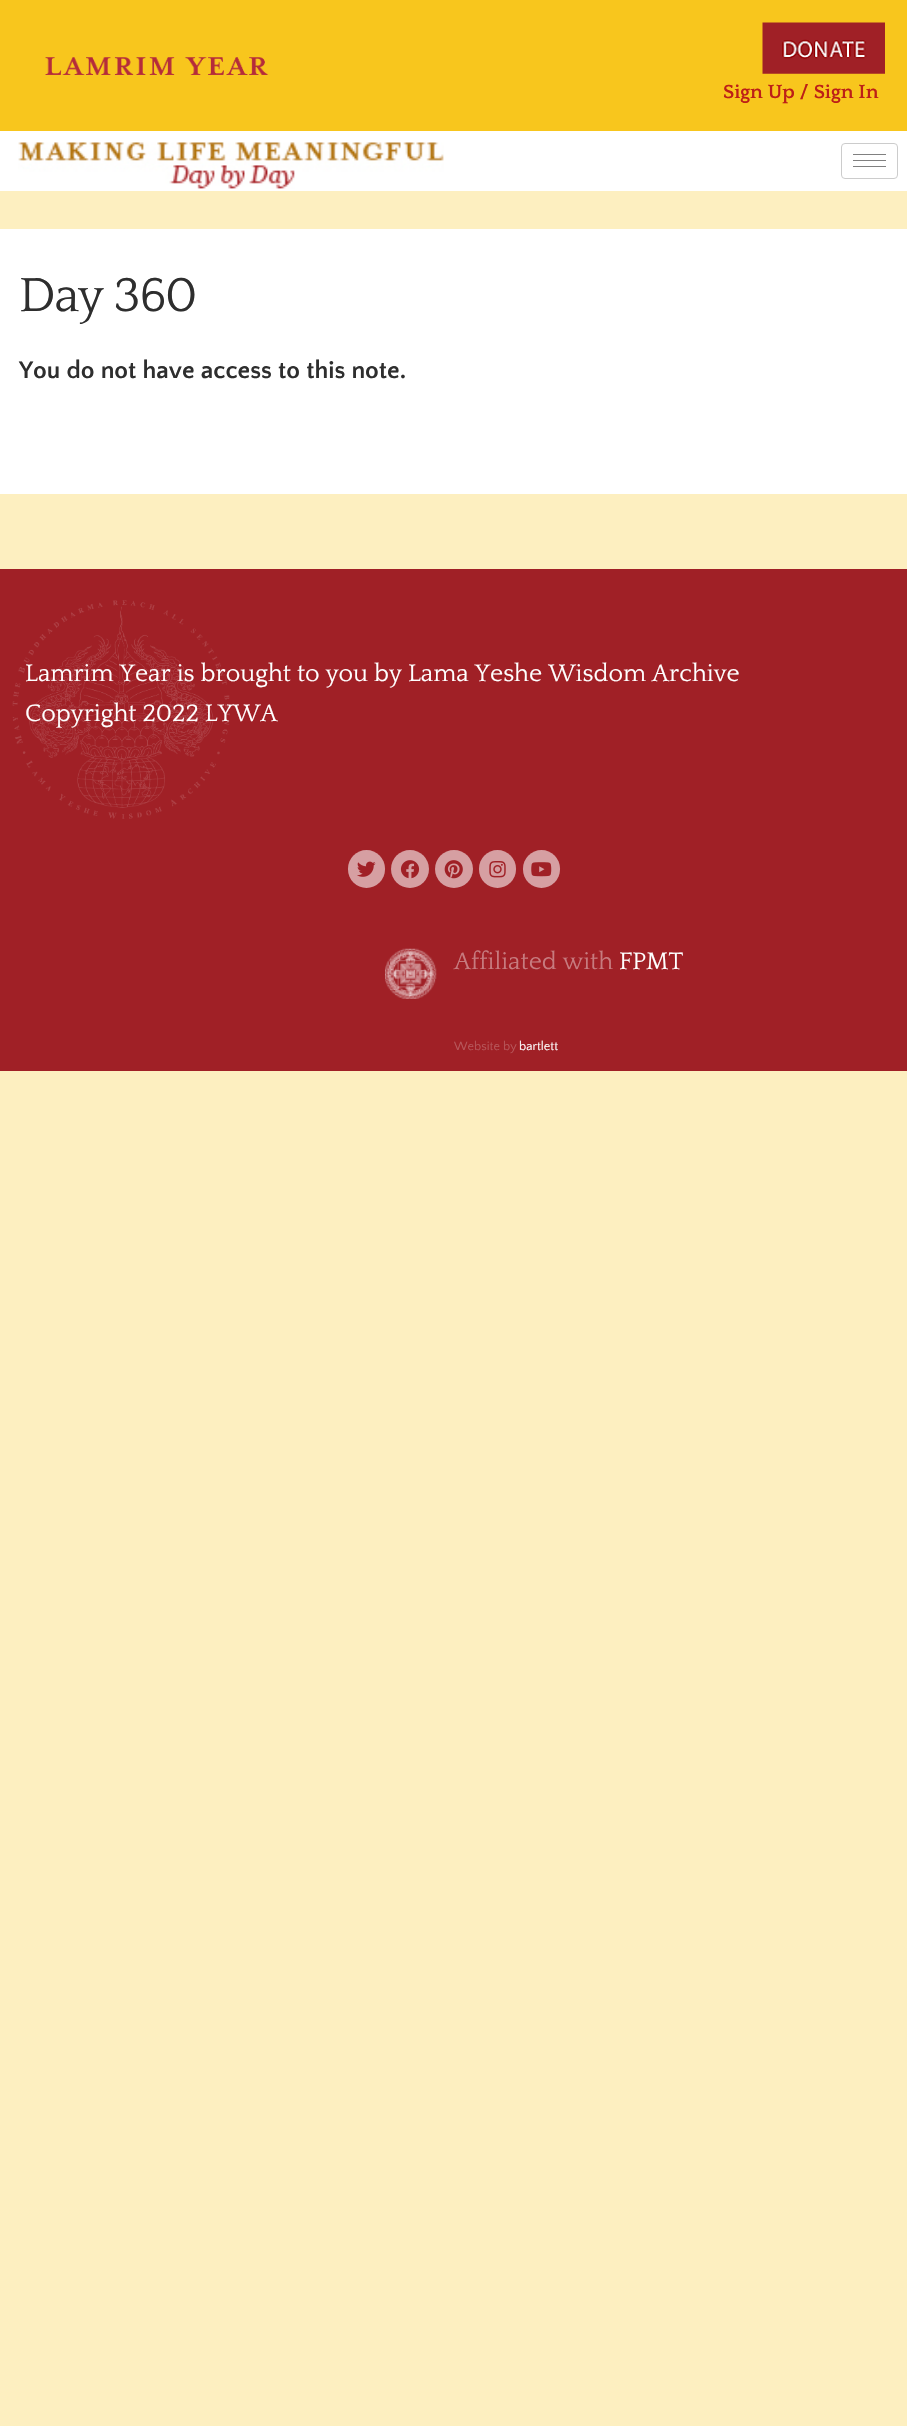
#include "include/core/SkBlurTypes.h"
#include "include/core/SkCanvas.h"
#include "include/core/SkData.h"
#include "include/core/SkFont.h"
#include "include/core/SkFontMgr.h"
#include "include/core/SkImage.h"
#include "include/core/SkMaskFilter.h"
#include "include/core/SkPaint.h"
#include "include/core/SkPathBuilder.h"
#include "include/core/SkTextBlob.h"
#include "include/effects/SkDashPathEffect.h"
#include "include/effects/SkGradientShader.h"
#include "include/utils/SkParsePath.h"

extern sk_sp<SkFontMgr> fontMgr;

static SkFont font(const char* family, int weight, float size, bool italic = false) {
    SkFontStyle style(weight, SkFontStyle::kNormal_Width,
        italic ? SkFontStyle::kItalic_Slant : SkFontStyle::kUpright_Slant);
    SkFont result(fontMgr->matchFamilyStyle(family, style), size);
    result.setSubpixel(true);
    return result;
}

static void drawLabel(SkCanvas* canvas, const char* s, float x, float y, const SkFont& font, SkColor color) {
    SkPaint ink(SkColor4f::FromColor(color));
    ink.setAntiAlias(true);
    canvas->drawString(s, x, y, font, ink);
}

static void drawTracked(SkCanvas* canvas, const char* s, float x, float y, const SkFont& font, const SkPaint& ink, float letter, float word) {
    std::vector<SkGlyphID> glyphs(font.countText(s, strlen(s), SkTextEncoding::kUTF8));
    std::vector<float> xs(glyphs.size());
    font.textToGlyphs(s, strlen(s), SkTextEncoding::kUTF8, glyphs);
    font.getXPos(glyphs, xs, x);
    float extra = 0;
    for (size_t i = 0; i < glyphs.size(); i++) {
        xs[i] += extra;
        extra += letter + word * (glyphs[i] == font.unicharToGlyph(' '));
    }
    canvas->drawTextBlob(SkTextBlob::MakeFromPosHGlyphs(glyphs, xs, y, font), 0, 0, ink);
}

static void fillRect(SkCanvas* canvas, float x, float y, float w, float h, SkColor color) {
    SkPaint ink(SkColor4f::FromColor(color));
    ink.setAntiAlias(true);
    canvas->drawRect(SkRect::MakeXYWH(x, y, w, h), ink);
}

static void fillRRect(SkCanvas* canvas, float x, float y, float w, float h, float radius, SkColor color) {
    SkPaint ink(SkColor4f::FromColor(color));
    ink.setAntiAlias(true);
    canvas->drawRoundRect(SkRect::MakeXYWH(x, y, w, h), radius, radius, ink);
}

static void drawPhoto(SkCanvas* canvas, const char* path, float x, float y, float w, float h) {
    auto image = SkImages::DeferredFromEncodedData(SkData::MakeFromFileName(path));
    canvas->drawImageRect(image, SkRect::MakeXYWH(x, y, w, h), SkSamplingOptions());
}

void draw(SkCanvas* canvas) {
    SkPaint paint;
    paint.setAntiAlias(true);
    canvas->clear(0xFFFDEFC0);
    fillRect(canvas, 0, 0, 907, 131, 0xFFF8C61D);
    drawPhoto(canvas, "assets/img1.png", 45, 57, 224, 18);
    drawPhoto(canvas, "assets/img2.png", 762, 22, 123, 52);
    SkFont font1 = font("Quattrocento", 700, 20);
    drawLabel(canvas, "Sign Up / Sign In", 723, 98, font1, 0xFFBD1F17);
    fillRect(canvas, 0, 131, 907, 60, 0xFFFFFFFF);
    drawPhoto(canvas, "assets/img3.png", 18, 142, 426, 47);
    paint.setStroke(true);
    paint.setStrokeWidth(1);
    paint.setColor(0xFFCCCCCC);
    canvas->drawRoundRect(SkRect::MakeXYWH(841.5f, 143.5f, 56, 35), 3.5f, 3.5f, paint);
    fillRect(canvas, 853, 154, 33, 1, 0xFF808080);
    fillRect(canvas, 853, 160, 33, 1, 0xFF808080);
    fillRect(canvas, 853, 166, 33, 1, 0xFF808080);
    fillRect(canvas, 0, 229, 907, 265, 0xFFFFFFFF);
    SkFont font2 = font("Quattrocento", 400, 50);
    paint.setStroke(false);
    paint.setColor(0xFF2E2E2E);
    drawTracked(canvas, "Day 360", 19, 311, font2, paint, -1.25f, 0);
    SkFont font3 = font("Quattrocento Sans", 700, 25);
    drawLabel(canvas, "You do not have access to this note.", 19, 378, font3, 0xFF2E2E2E);
    fillRect(canvas, 0, 569, 907, 502, 0xFFA02026);
    drawPhoto(canvas, "assets/img4.png", 12, 600, 218, 219);
    SkFont font4 = font("Quattrocento", 400, 25);
    drawLabel(canvas, "Lamrim Year is brought to you by Lama Yeshe Wisdom Archive", 25, 681, font4, 0xFFFFFFFF);
    drawLabel(canvas, "Copyright 2022 LYWA", 25, 721, font4, 0xFFFFFFFF);
    fillRRect(canvas, 348, 850, 37, 38, 18.5f, 0xFFD69FA2);
    drawPhoto(canvas, "assets/img5.png", 357, 861, 19, 16);
    paint.setColor(0xFFD69FA2);
    canvas->drawCircle(410, 869, 19, paint);
    drawPhoto(canvas, "assets/img6.png", 400, 860, 20, 19);
    canvas->drawCircle(454, 869, 19, paint);
    drawPhoto(canvas, "assets/img7.png", 444, 860, 19, 19);
    fillRRect(canvas, 479, 850, 37, 38, 18.5f, 0xFFD69FA2);
    drawPhoto(canvas, "assets/img8.png", 489, 861, 17, 17);
    fillRRect(canvas, 523, 850, 37, 38, 18.5f, 0xFFD69FA2);
    drawPhoto(canvas, "assets/img9.png", 531, 862, 21, 15);
    drawPhoto(canvas, "assets/img10.png", 385, 948, 52, 51);
    drawLabel(canvas, "Affiliated with", 454, 969, font4, 0xFFC77B7F);
    drawLabel(canvas, "FPMT", 619, 969, font4, 0xFFFFFFFF);
    SkFont font5 = font("Quattrocento Sans", 400, 12.5f);
    drawLabel(canvas, "Website by", 454, 1050, font5, 0xFFB7565A);
    drawLabel(canvas, "bartlett", 519, 1050, font5, 0xFFFFFFFF);
}
